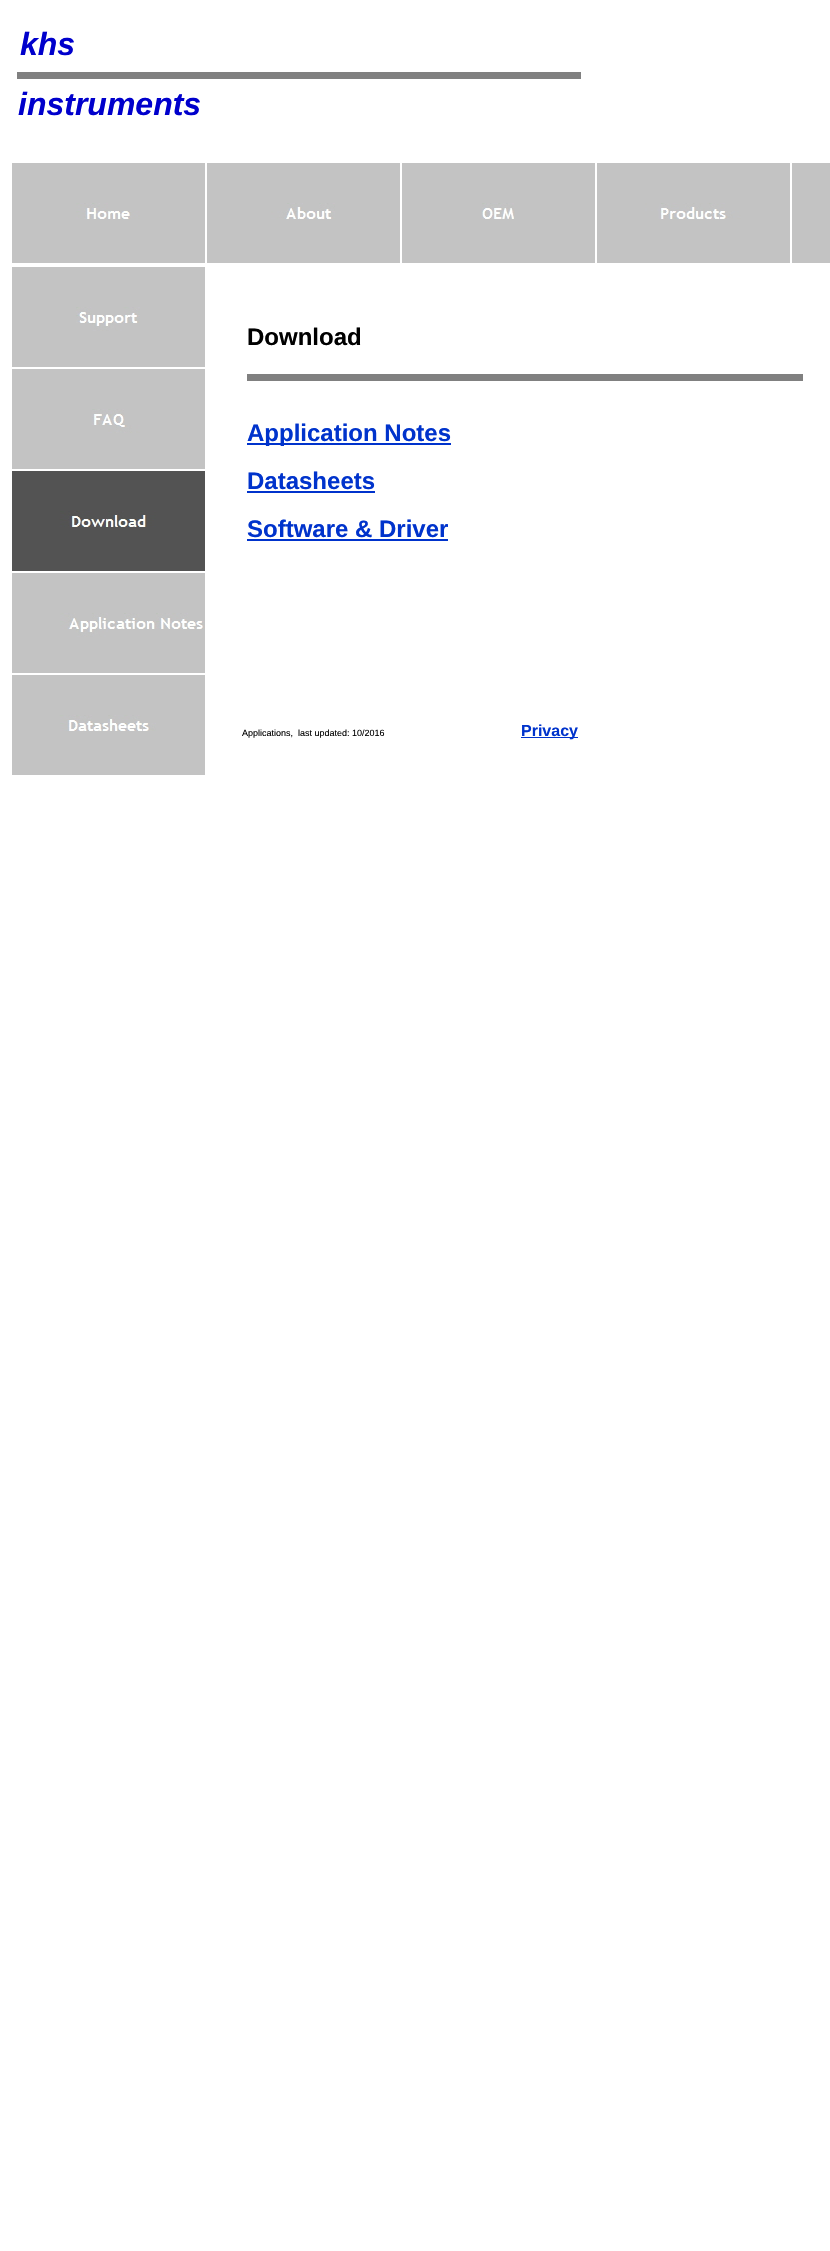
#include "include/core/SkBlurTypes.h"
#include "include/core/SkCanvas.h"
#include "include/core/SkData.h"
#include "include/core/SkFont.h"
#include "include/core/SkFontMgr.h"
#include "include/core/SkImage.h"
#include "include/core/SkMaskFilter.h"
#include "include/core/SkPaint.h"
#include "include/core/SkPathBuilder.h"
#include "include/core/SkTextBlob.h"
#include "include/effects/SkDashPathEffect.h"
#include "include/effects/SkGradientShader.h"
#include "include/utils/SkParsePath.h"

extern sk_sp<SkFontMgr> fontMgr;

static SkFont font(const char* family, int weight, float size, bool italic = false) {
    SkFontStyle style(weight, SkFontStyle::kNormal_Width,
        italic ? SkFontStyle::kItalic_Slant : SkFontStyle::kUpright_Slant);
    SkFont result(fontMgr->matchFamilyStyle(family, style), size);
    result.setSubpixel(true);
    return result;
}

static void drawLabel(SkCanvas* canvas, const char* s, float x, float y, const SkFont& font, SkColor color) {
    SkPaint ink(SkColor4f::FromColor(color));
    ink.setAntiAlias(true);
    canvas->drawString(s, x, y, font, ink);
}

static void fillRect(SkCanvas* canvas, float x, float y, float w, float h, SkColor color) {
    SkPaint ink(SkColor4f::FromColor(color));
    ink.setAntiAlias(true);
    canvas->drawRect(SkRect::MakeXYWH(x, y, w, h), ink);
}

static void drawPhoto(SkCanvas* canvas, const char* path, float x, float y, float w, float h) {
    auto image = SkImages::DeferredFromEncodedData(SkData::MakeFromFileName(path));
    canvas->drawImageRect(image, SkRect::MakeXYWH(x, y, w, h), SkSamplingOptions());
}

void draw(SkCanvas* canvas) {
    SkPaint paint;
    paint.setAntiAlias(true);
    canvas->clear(0xFFFFFFFF);
    SkFont font1 = font("Liberation Sans", 700, 32, true);
    drawLabel(canvas, "khs", 20, 55, font1, 0xFF0000CC);
    fillRect(canvas, 17, 72, 564, 7, 0xFF808080);
    drawLabel(canvas, "instruments", 18, 115, font1, 0xFF0000CC);
    drawPhoto(canvas, "assets/img1.png", 12, 163, 193, 100);
    drawPhoto(canvas, "assets/img2.png", 207, 163, 193, 100);
    drawPhoto(canvas, "assets/img3.png", 402, 163, 193, 100);
    drawPhoto(canvas, "assets/img4.png", 597, 163, 193, 100);
    fillRect(canvas, 792, 163, 38, 100, 0xFFC3C3C3);
    drawPhoto(canvas, "assets/img5.png", 12, 267, 193, 100);
    drawPhoto(canvas, "assets/img6.png", 12, 369, 193, 100);
    drawPhoto(canvas, "assets/img7.png", 12, 471, 193, 100);
    drawPhoto(canvas, "assets/img8.png", 12, 573, 193, 100);
    drawPhoto(canvas, "assets/img9.png", 12, 675, 193, 100);
    SkFont font2 = font("Liberation Sans", 700, 24);
    drawLabel(canvas, "Download", 247, 345, font2, 0xFF000000);
    fillRect(canvas, 247, 374, 556, 7, 0xFF808080);
    fillRect(canvas, 247, 443, 204, 2, 0xFF0033CC);
    drawLabel(canvas, "Application Notes", 247, 441, font2, 0xFF0033CC);
    drawLabel(canvas, "Datasheets", 247, 489, font2, 0xFF0033CC);
    fillRect(canvas, 247, 491, 128, 2, 0xFF0033CC);
    drawLabel(canvas, "Software & Driver", 247, 537, font2, 0xFF0033CC);
    fillRect(canvas, 247, 539, 201, 2, 0xFF0033CC);
    SkFont font3 = font("Liberation Sans", 400, 9);
    drawLabel(canvas, "Applications,  last updated: 10/2016", 242, 736, font3, 0xFF000000);
    fillRect(canvas, 521, 737, 57, 1, 0xFF0033CC);
    SkFont font4 = font("Liberation Sans", 700, 16);
    drawLabel(canvas, "Privacy", 521, 736, font4, 0xFF0033CC);
}
